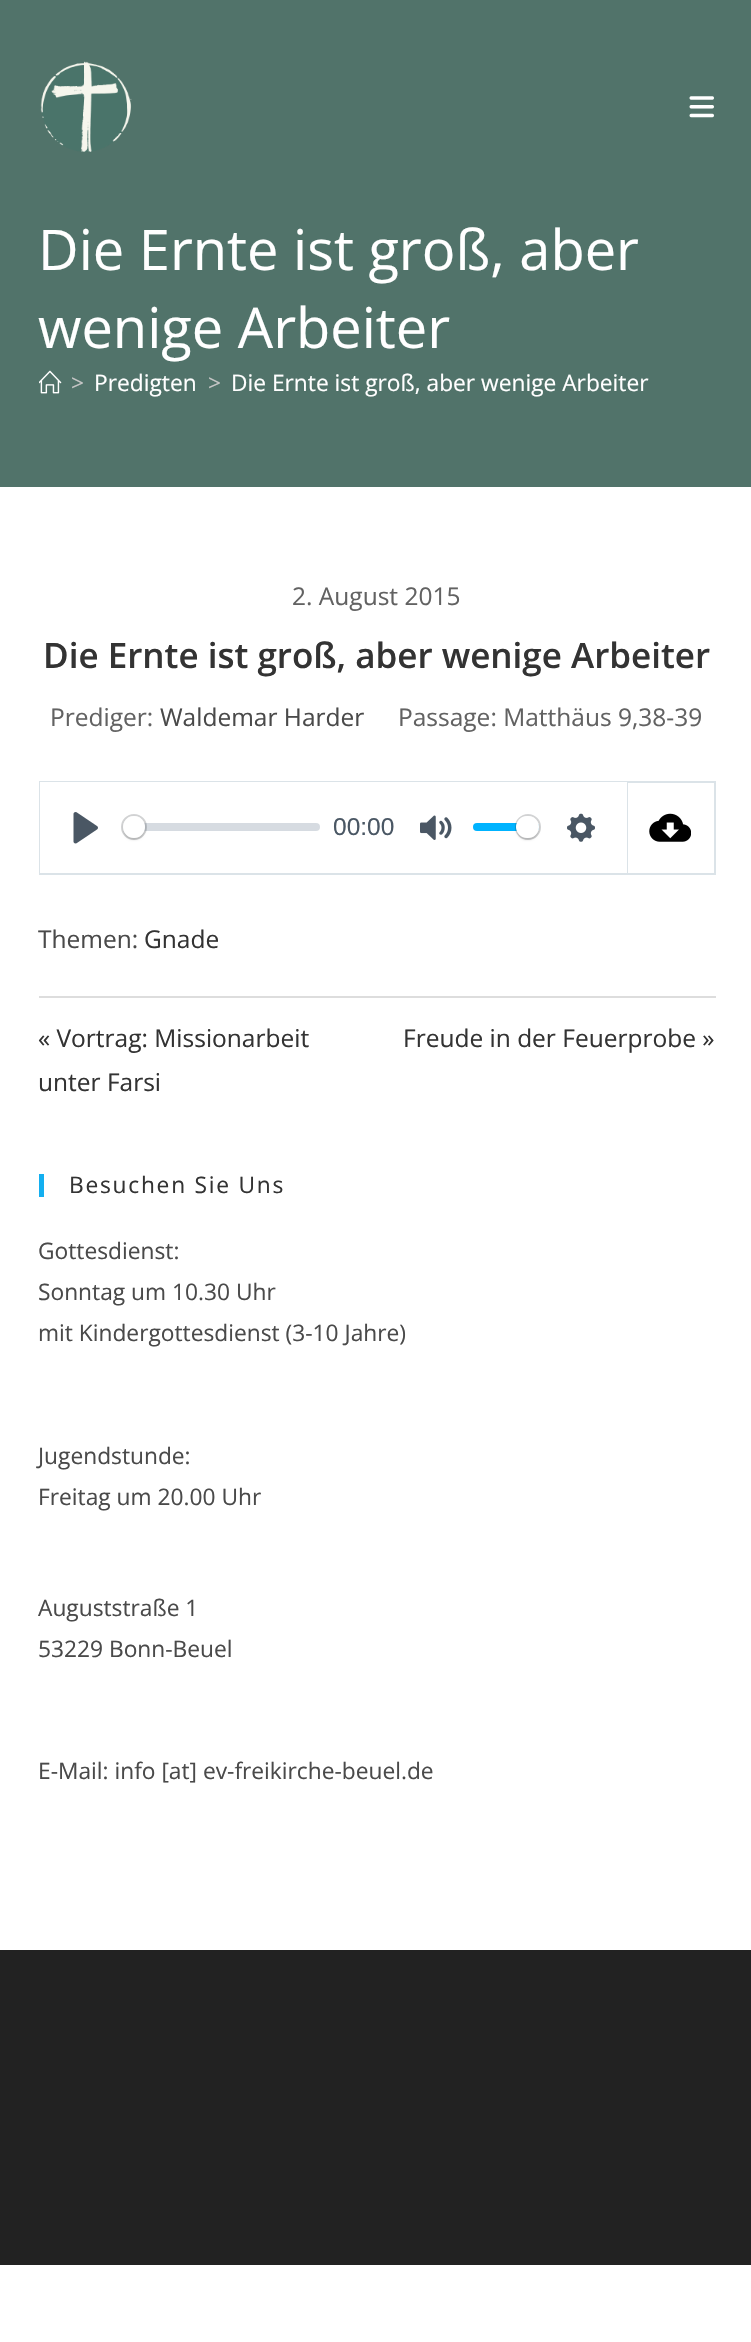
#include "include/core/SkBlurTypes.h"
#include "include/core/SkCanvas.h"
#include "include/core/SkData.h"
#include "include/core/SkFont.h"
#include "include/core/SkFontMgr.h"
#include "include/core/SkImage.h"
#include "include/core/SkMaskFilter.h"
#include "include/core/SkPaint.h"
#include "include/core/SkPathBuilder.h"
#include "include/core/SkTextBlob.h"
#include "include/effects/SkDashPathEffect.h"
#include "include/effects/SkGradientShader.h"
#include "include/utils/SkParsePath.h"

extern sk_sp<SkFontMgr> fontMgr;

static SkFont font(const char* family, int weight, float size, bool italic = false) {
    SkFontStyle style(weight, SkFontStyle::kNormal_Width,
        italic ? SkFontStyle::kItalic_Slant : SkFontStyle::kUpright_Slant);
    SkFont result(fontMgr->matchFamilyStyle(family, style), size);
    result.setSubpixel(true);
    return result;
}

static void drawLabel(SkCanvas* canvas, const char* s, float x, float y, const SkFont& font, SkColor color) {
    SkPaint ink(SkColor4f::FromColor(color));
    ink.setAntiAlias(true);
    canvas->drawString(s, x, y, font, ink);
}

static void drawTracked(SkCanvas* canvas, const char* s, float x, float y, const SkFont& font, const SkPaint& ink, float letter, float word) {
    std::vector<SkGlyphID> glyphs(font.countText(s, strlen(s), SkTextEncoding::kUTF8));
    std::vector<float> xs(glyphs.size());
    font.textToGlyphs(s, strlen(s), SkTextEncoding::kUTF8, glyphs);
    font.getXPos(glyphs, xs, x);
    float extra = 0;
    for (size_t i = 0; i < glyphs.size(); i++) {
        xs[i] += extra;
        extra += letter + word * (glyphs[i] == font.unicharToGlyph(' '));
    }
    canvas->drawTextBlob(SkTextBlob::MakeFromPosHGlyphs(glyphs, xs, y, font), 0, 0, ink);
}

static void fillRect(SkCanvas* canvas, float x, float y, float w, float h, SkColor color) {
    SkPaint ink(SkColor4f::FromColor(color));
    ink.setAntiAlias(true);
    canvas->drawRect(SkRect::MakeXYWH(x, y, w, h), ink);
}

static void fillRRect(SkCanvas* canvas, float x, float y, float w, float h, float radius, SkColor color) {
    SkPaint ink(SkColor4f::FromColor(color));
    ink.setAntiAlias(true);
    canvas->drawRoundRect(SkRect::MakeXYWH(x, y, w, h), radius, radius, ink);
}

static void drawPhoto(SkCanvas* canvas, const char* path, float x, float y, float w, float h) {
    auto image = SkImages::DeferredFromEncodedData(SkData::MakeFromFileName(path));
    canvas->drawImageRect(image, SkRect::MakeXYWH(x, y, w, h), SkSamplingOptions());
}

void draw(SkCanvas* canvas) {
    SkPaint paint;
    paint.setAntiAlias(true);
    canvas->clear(0xFFFFFFFF);
    fillRect(canvas, 0, 0, 751, 487, 0xFF51736A);
    drawPhoto(canvas, "assets/img1.png", 40, 61, 92, 91);
    drawPhoto(canvas, "assets/img2.png", 689, 96, 25, 22);
    SkFont font1 = font("Open Sans", 400, 56);
    drawLabel(canvas, "Die Ernte ist groß, aber", 38, 270, font1, 0xFFFFFFFF);
    drawLabel(canvas, "wenige Arbeiter", 38, 348, font1, 0xFFFFFFFF);
    drawPhoto(canvas, "assets/img3.png", 39, 370, 23, 24);
    SkFont font2 = font("Open Sans", 400, 22.75f);
    drawLabel(canvas, ">", 71, 391, font2, 0xFFC6C6C6);
    drawLabel(canvas, "Predigten", 94, 391, font2, 0xFFFFFFFF);
    drawLabel(canvas, ">", 208, 391, font2, 0xFFC6C6C6);
    drawLabel(canvas, "Die Ernte ist groß, aber wenige Arbeiter", 231, 391, font2, 0xFFFFFFFF);
    SkFont font3 = font("Open Sans", 400, 24.5f);
    drawLabel(canvas, "2. August 2015", 292, 605, font3, 0xFF626262);
    SkFont font4 = font("Open Sans", 600, 35);
    drawLabel(canvas, "Die Ernte ist groß, aber wenige Arbeiter", 43, 668, font4, 0xFF333333);
    drawLabel(canvas, "Prediger:", 50, 726, font3, 0xFF626262);
    drawLabel(canvas, "Waldemar Harder", 160, 726, font3, 0xFF4A4A4A);
    drawLabel(canvas, "Passage: Matthäus 9,38-39", 398, 726, font3, 0xFF626262);
    paint.setStroke(true);
    paint.setStrokeWidth(2);
    paint.setColor(0xFFDBE3E8);
    canvas->drawRect(SkRect::MakeXYWH(40, 782, 587, 92), paint);
    fillRect(canvas, 40, 782, 587, 91, 0xFFFFFFFF);
    drawPhoto(canvas, "assets/img4.png", 73, 812, 25, 32);
    fillRRect(canvas, 123, 823, 197, 8, 4, 0xA8C1C9D1);
    paint.setColor(0x3323292F);
    canvas->drawCircle(134, 827, 12, paint);
    paint.setStroke(false);
    paint.setColor(0x26000000);
    paint.setMaskFilter(SkMaskFilter::MakeBlur(kNormal_SkBlurStyle, 1));
    canvas->drawRoundRect(SkRect::MakeXYWH(123, 817, 22, 23), 11, 11, paint);
    paint.setMaskFilter(nullptr);
    paint.setColor(0xFFFFFFFF);
    canvas->drawCircle(134, 827, 11, paint);
    SkFont font5 = font("Liberation Sans", 400, 24.5f);
    drawLabel(canvas, "00:00", 333, 835, font5, 0xFF4A5764);
    drawPhoto(canvas, "assets/img5.png", 420, 815, 32, 25);
    fillRRect(canvas, 473, 823, 66, 8, 4, 0xFF00B3FF);
    paint.setStroke(true);
    paint.setColor(0x3323292F);
    canvas->drawCircle(528, 827, 12, paint);
    paint.setStroke(false);
    paint.setColor(0x26000000);
    paint.setMaskFilter(SkMaskFilter::MakeBlur(kNormal_SkBlurStyle, 1));
    canvas->drawRoundRect(SkRect::MakeXYWH(516, 817, 23, 23), 11.5f, 11.5f, paint);
    paint.setMaskFilter(nullptr);
    fillRRect(canvas, 516, 816, 23, 22, 11, 0xFFFFFFFF);
    drawPhoto(canvas, "assets/img6.png", 567, 813, 28, 29);
    fillRect(canvas, 628, 781, 88, 2, 0xFFDBE3E8);
    fillRect(canvas, 714, 781, 2, 94, 0xFFDBE3E8);
    fillRect(canvas, 628, 873, 88, 2, 0xFFDBE3E8);
    drawPhoto(canvas, "assets/img7.png", 649, 813, 42, 29);
    drawLabel(canvas, "Themen:", 38, 948, font3, 0xFF4A4A4A);
    drawLabel(canvas, "Gnade", 144, 948, font3, 0xFF333333);
    fillRect(canvas, 39, 996, 677, 2, 0xFFDDDDDD);
    drawLabel(canvas, "« Vortrag: Missionarbeit", 38, 1047, font3, 0xFF333333);
    drawLabel(canvas, "unter Farsi", 38, 1091, font3, 0xFF333333);
    drawLabel(canvas, "Freude in der Feuerprobe »", 403, 1047, font3, 0xFF333333);
    fillRect(canvas, 39, 1174, 5, 23, 0xFF13AFF0);
    paint.setColor(0xFF333333);
    drawTracked(canvas, "Besuchen Sie Uns", 69, 1193, font2, paint, 1.75f, 0);
    drawLabel(canvas, "Gottesdienst:", 38, 1259, font2, 0xFF4A4A4A);
    drawLabel(canvas, "Sonntag um 10.30 Uhr", 38, 1300, font2, 0xFF4A4A4A);
    drawLabel(canvas, "mit Kindergottesdienst (3-10 Jahre)", 38, 1341, font2, 0xFF4A4A4A);
    drawLabel(canvas, "Jugendstunde:", 38, 1464, font2, 0xFF4A4A4A);
    drawLabel(canvas, "Freitag um 20.00 Uhr", 38, 1505, font2, 0xFF4A4A4A);
    drawLabel(canvas, "Auguststraße 1", 38, 1616, font2, 0xFF4A4A4A);
    drawLabel(canvas, "53229 Bonn-Beuel", 38, 1657, font2, 0xFF4A4A4A);
    drawLabel(canvas, "E-Mail: info [at] ev-freikirche-beuel.de", 38, 1779, font2, 0xFF4A4A4A);
    fillRect(canvas, 0, 1950, 751, 315, 0xFF222222);
}
